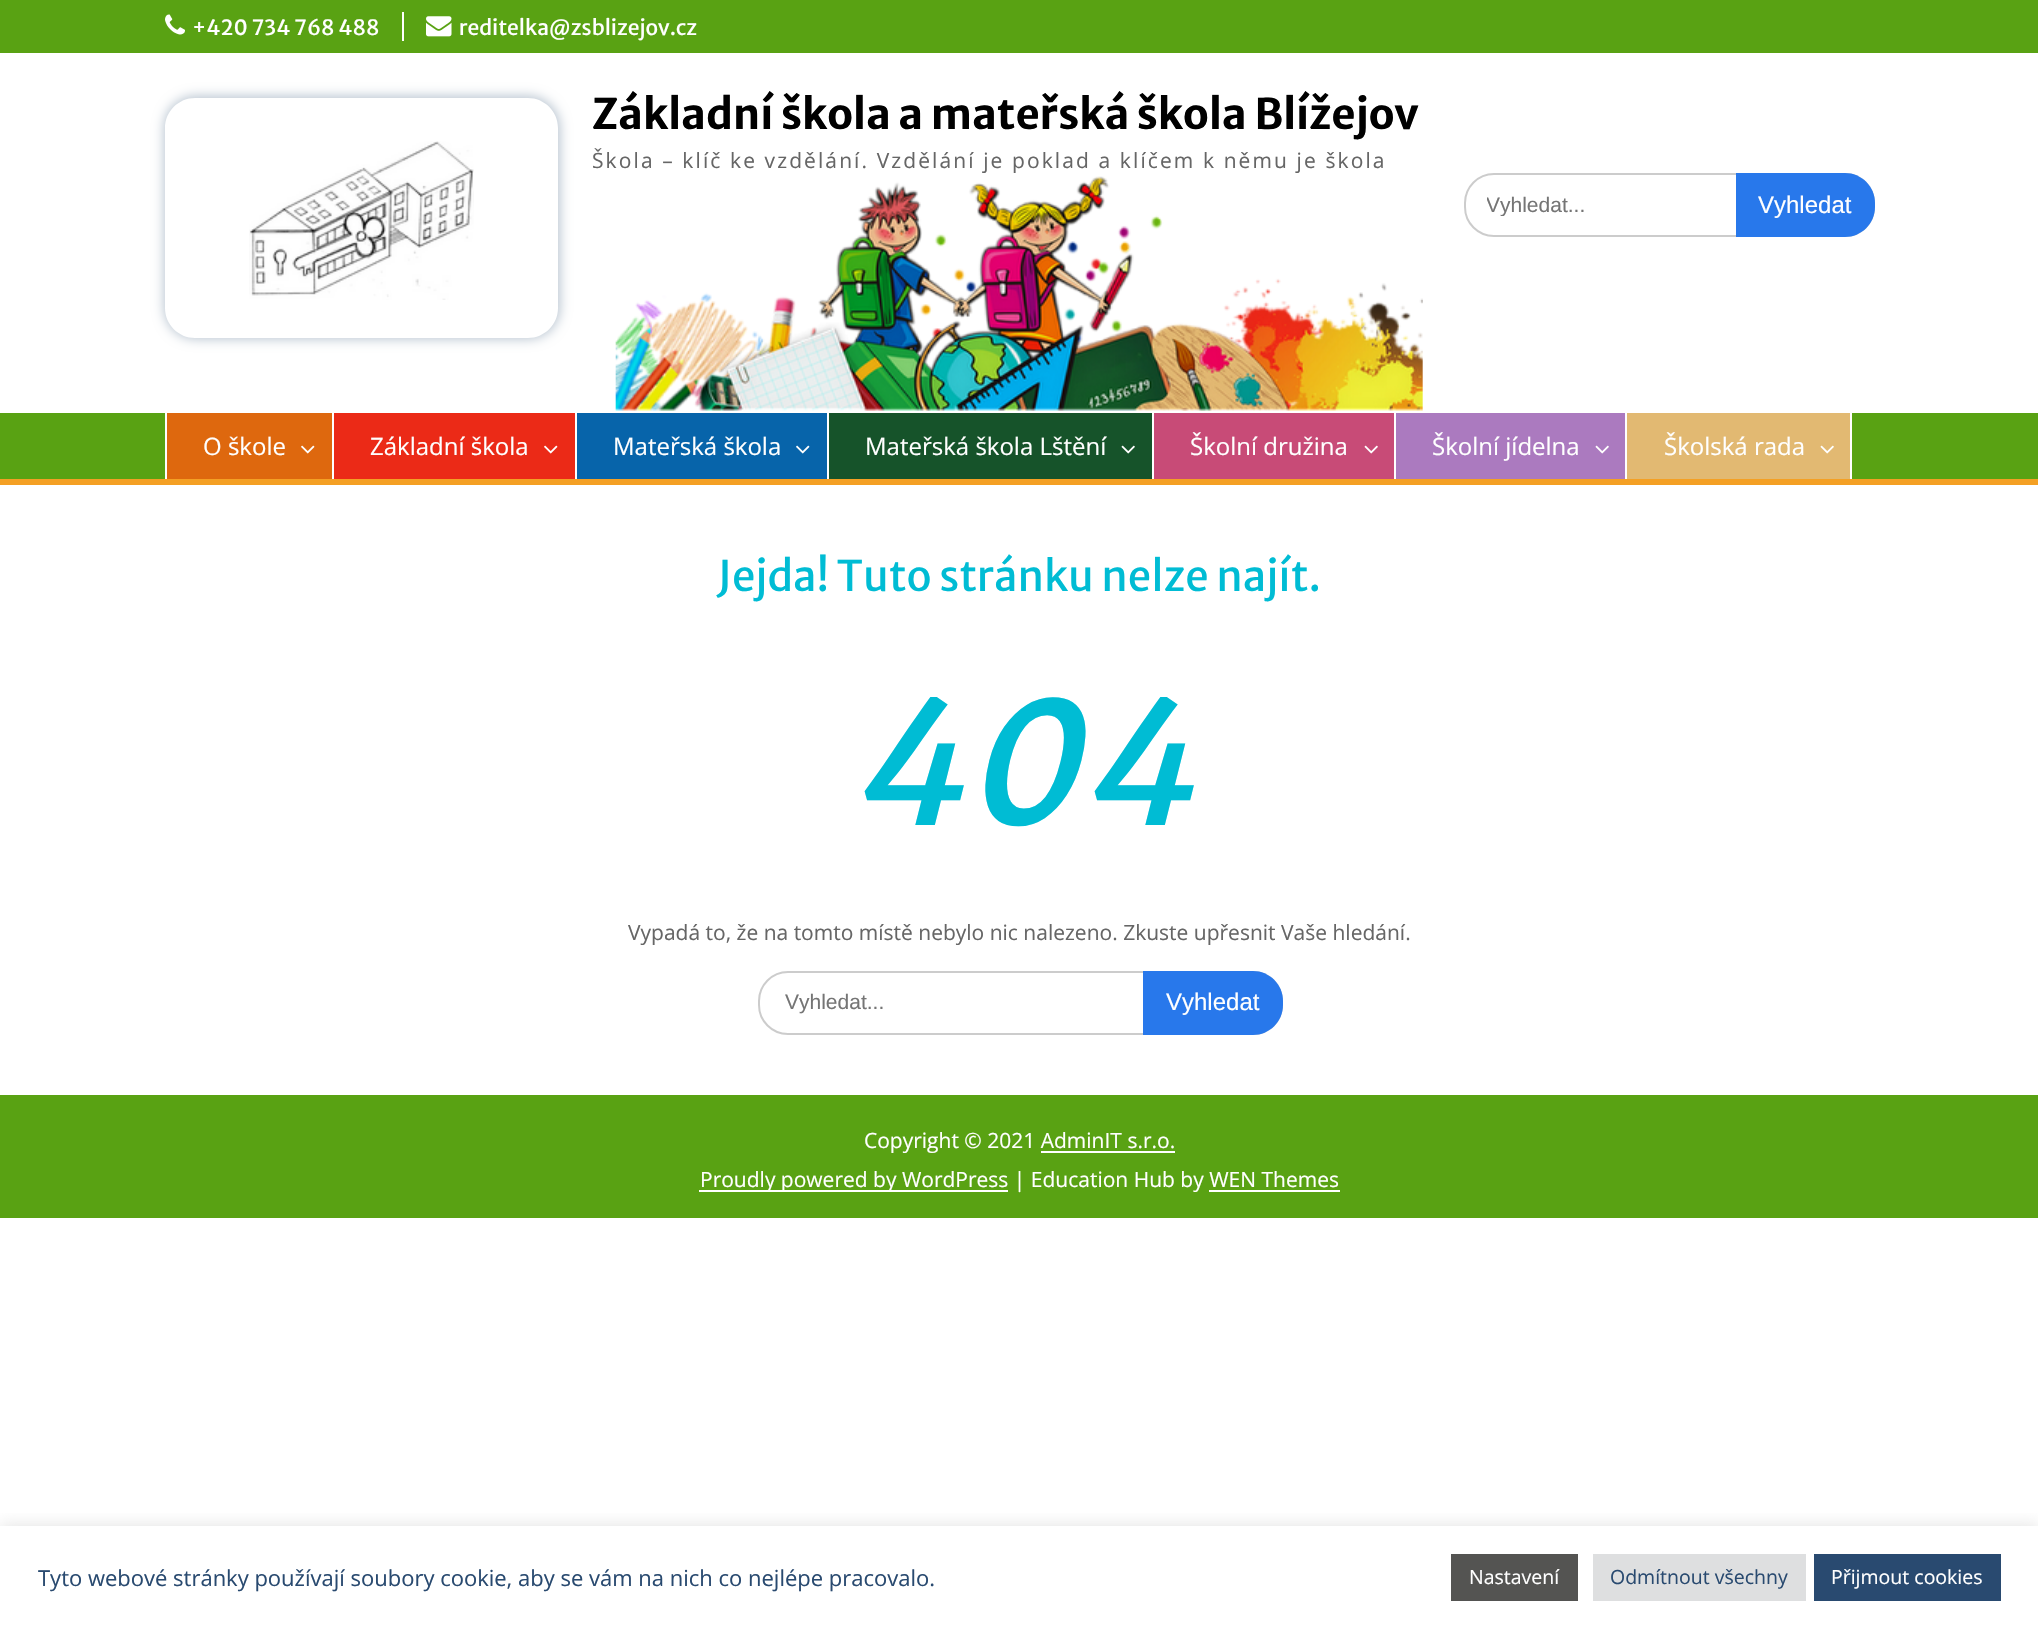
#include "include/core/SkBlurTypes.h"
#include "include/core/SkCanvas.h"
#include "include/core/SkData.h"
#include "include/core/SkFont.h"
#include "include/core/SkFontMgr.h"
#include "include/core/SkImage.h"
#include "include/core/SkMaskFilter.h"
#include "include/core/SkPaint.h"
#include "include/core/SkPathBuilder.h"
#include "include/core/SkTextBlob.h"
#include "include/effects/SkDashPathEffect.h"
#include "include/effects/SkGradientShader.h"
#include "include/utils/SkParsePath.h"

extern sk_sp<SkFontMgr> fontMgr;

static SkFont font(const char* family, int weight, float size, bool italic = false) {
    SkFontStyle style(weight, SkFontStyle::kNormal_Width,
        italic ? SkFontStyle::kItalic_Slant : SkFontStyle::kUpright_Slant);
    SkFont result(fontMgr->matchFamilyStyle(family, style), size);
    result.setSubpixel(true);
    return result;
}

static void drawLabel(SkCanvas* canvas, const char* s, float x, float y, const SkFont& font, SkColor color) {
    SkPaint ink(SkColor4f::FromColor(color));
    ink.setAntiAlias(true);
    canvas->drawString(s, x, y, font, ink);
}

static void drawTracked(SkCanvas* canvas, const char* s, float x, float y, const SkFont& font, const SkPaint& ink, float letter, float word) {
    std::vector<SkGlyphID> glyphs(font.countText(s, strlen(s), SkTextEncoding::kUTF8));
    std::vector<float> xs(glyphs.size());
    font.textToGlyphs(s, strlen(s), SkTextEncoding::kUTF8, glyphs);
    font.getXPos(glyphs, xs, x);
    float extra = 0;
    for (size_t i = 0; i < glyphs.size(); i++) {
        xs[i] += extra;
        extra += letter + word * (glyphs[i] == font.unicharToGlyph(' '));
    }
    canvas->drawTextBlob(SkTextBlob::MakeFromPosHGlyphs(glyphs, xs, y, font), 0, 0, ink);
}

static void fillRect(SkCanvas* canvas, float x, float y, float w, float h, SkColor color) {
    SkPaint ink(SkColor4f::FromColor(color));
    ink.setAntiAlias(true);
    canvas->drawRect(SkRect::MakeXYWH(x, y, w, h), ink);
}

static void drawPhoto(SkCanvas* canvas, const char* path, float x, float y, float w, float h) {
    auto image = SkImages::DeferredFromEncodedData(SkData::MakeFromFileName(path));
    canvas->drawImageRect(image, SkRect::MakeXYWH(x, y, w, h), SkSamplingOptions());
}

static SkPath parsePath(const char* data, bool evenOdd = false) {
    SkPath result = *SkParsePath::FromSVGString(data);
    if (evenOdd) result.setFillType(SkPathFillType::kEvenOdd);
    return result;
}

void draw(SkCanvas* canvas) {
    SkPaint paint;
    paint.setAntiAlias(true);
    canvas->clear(0xFFFFFFFF);
    fillRect(canvas, 0, 0, 2038, 53, 0xFF59A213);
    drawPhoto(canvas, "assets/img1.png", 165, 14, 20, 21);
    SkFont font1 = font("Merriweather Sans", 400, 21);
    drawLabel(canvas, "+420 734 768 488", 192, 35, font1, 0xFFFFFFFF);
    fillRect(canvas, 402, 12, 2, 29, 0xFFFFFFFF);
    drawPhoto(canvas, "assets/img2.png", 426, 16, 26, 21);
    drawLabel(canvas, "reditelka@zsblizejov.cz", 459, 35, font1, 0xFFFFFFFF);
    drawPhoto(canvas, "assets/img3.png", 615, 176, 808, 235);
    canvas->save();
    canvas->clipPath(parsePath("M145 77H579V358H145ZM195 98H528C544.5 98 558 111.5 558 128V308C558 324.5 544.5 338 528 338H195C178.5 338 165 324.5 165 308V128C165 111.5 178.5 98 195 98Z", true), true);
    paint.setColor(0xFFB8C4D0);
    paint.setMaskFilter(SkMaskFilter::MakeBlur(kNormal_SkBlurStyle, 6));
    canvas->drawRoundRect(SkRect::MakeXYWH(164, 96, 396, 243), 32, 32, paint);
    paint.setMaskFilter(nullptr);
    canvas->restore();
    drawPhoto(canvas, "assets/img4.png", 249, 141, 225, 159);
    SkFont font2 = font("Merriweather Sans", 700, 42);
    drawLabel(canvas, "Základní škola a mateřská škola Blížejov", 592, 129, font2, 0xFF000000);
    SkFont font3 = font("Open Sans", 400, 21);
    paint.setColor(0xFF666666);
    drawTracked(canvas, "Škola – klíč ke vzdělání. Vzdělání je poklad a klíčem k němu je škola", 592, 168, font3, paint, 2.1f, 0);
    paint.setStroke(true);
    paint.setStrokeWidth(2);
    paint.setColor(0xFFCCCCCC);
    canvas->drawRoundRect(SkRect::MakeXYWH(1465, 174, 409, 62), 29, 29, paint);
    canvas->save();
    canvas->clipRect(SkRect::MakeXYWH(1487, 192, 277, 24));
    SkFont font4 = font("Liberation Sans", 400, 21);
    drawLabel(canvas, "Vyhledat...", 1486, 212, font4, 0xFF757575);
    canvas->restore();
    paint.setStroke(false);
    paint.setColor(0xFF2878EB);
    canvas->drawPath(parsePath("M1736 173H1845C1861.5 173 1875 186.5 1875 203V207C1875 223.5 1861.5 237 1845 237H1736Z"), paint);
    SkFont font5 = font("Liberation Sans", 400, 24);
    drawLabel(canvas, "Vyhledat", 1758, 213, font5, 0xFFFFFFFF);
    fillRect(canvas, 0, 413, 2038, 66, 0xFF59A213);
    fillRect(canvas, 0, 479, 2038, 6, 0xFFF4A024);
    fillRect(canvas, 167, 413, 165, 66, 0xFFDE680E);
    fillRect(canvas, 332, 413, 2, 66, 0xFFFFFFFF);
    fillRect(canvas, 165, 413, 2, 66, 0xFFFFFFFF);
    SkFont font6 = font("Open Sans", 400, 24);
    drawLabel(canvas, "O škole", 203, 455, font6, 0xFFFFFFFF);
    drawPhoto(canvas, "assets/img5.png", 301, 445, 14, 9);
    fillRect(canvas, 334, 413, 241, 66, 0xFFEB2A17);
    fillRect(canvas, 575, 413, 2, 66, 0xFFFFFFFF);
    drawLabel(canvas, "Základní škola", 370, 455, font6, 0xFFFFFFFF);
    drawPhoto(canvas, "assets/img6.png", 544, 445, 14, 9);
    fillRect(canvas, 577, 413, 250, 66, 0xFF0764AA);
    fillRect(canvas, 827, 413, 2, 66, 0xFFFFFFFF);
    drawLabel(canvas, "Mateřská škola", 613, 455, font6, 0xFFFFFFFF);
    drawPhoto(canvas, "assets/img7.png", 796, 445, 14, 9);
    fillRect(canvas, 829, 413, 323, 66, 0xFF16532A);
    fillRect(canvas, 1152, 413, 2, 66, 0xFFFFFFFF);
    drawLabel(canvas, "Mateřská škola Lštění", 865, 455, font6, 0xFFFFFFFF);
    drawPhoto(canvas, "assets/img8.png", 1121, 445, 14, 9);
    fillRect(canvas, 1154, 413, 240, 66, 0xFFC84B77);
    fillRect(canvas, 1394, 413, 2, 66, 0xFFFFFFFF);
    drawLabel(canvas, "Školní družina", 1190, 455, font6, 0xFFFFFFFF);
    drawPhoto(canvas, "assets/img9.png", 1364, 445, 14, 9);
    fillRect(canvas, 1396, 413, 229, 66, 0xFFAB7ABF);
    fillRect(canvas, 1625, 413, 2, 66, 0xFFFFFFFF);
    drawLabel(canvas, "Školní jídelna", 1432, 455, font6, 0xFFFFFFFF);
    drawPhoto(canvas, "assets/img10.png", 1595, 445, 14, 9);
    fillRect(canvas, 1627, 413, 223, 66, 0xFFE2B972);
    fillRect(canvas, 1850, 413, 2, 66, 0xFFFFFFFF);
    drawLabel(canvas, "Školská rada", 1664, 455, font6, 0xFFFFFFFF);
    drawPhoto(canvas, "assets/img11.png", 1820, 445, 14, 9);
    SkFont font7 = font("Merriweather Sans", 400, 42);
    drawLabel(canvas, "Jejda! Tuto stránku nelze najít.", 717, 591, font7, 0xFF00BCD4);
    SkFont font8 = font("Merriweather Sans", 400, 169.5f, true);
    drawLabel(canvas, "404", 847, 825, font8, 0xFF00BCD4);
    drawLabel(canvas, "Vypadá to, že na tomto místě nebylo nic nalezeno. Zkuste upřesnit Vaše hledání.", 628, 940, font3, 0xFF666666);
    paint.setStroke(true);
    paint.setColor(0xFFCCCCCC);
    canvas->drawRoundRect(SkRect::MakeXYWH(759, 972, 523, 62), 29, 29, paint);
    drawLabel(canvas, "Vyhledat...", 785, 1009, font4, 0xFF757575);
    paint.setStroke(false);
    paint.setColor(0xFF2878EB);
    canvas->drawPath(parsePath("M1143 971H1253C1269.5 971 1283 984.5 1283 1001V1005C1283 1021.5 1269.5 1035 1253 1035H1143Z"), paint);
    drawLabel(canvas, "Vyhledat", 1166, 1010, font5, 0xFFFFFFFF);
    fillRect(canvas, 0, 1095, 2038, 123, 0xFF59A213);
    drawLabel(canvas, "Copyright © 2021 AdminIT s.r.o.", 864, 1148, font3, 0xFFFFFFFF);
    fillRect(canvas, 1041, 1151, 134, 2, 0xFFFFFFFF);
    fillRect(canvas, 699, 1190, 309, 2, 0xFFFFFFFF);
    drawLabel(canvas, "Proudly powered by WordPress | Education Hub by WEN Themes", 700, 1187, font3, 0xFFFFFFFF);
    fillRect(canvas, 1209, 1190, 131, 2, 0xFFFFFFFF);
    canvas->save();
    canvas->clipRect(SkRect::MakeXYWH(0, 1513, 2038, 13));
    paint.setColor(0x4DACABAB);
    paint.setMaskFilter(SkMaskFilter::MakeBlur(kNormal_SkBlurStyle, 7.5f));
    canvas->drawRect(SkRect::MakeXYWH(0, 1524, 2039, 104), paint);
    paint.setMaskFilter(nullptr);
    canvas->restore();
    SkFont font9 = font("Open Sans", 400, 22);
    drawLabel(canvas, "Tyto webové stránky používají soubory cookie, aby se vám na nich co nejlépe pracovalo.", 38, 1586, font9, 0xFF294A70);
    fillRect(canvas, 1451, 1554, 127, 47, 0xFF545452);
    SkFont font10 = font("Open Sans", 400, 19.5f);
    drawLabel(canvas, "Nastavení", 1469, 1584, font10, 0xFFFFFFFF);
    fillRect(canvas, 1593, 1554, 213, 47, 0xFFDEDFE0);
    drawLabel(canvas, "Odmítnout všechny", 1610, 1584, font10, 0xFF294A70);
    fillRect(canvas, 1814, 1554, 187, 47, 0xFF294A70);
    drawLabel(canvas, "Přijmout cookies", 1831, 1584, font10, 0xFFFFFFFF);
}
